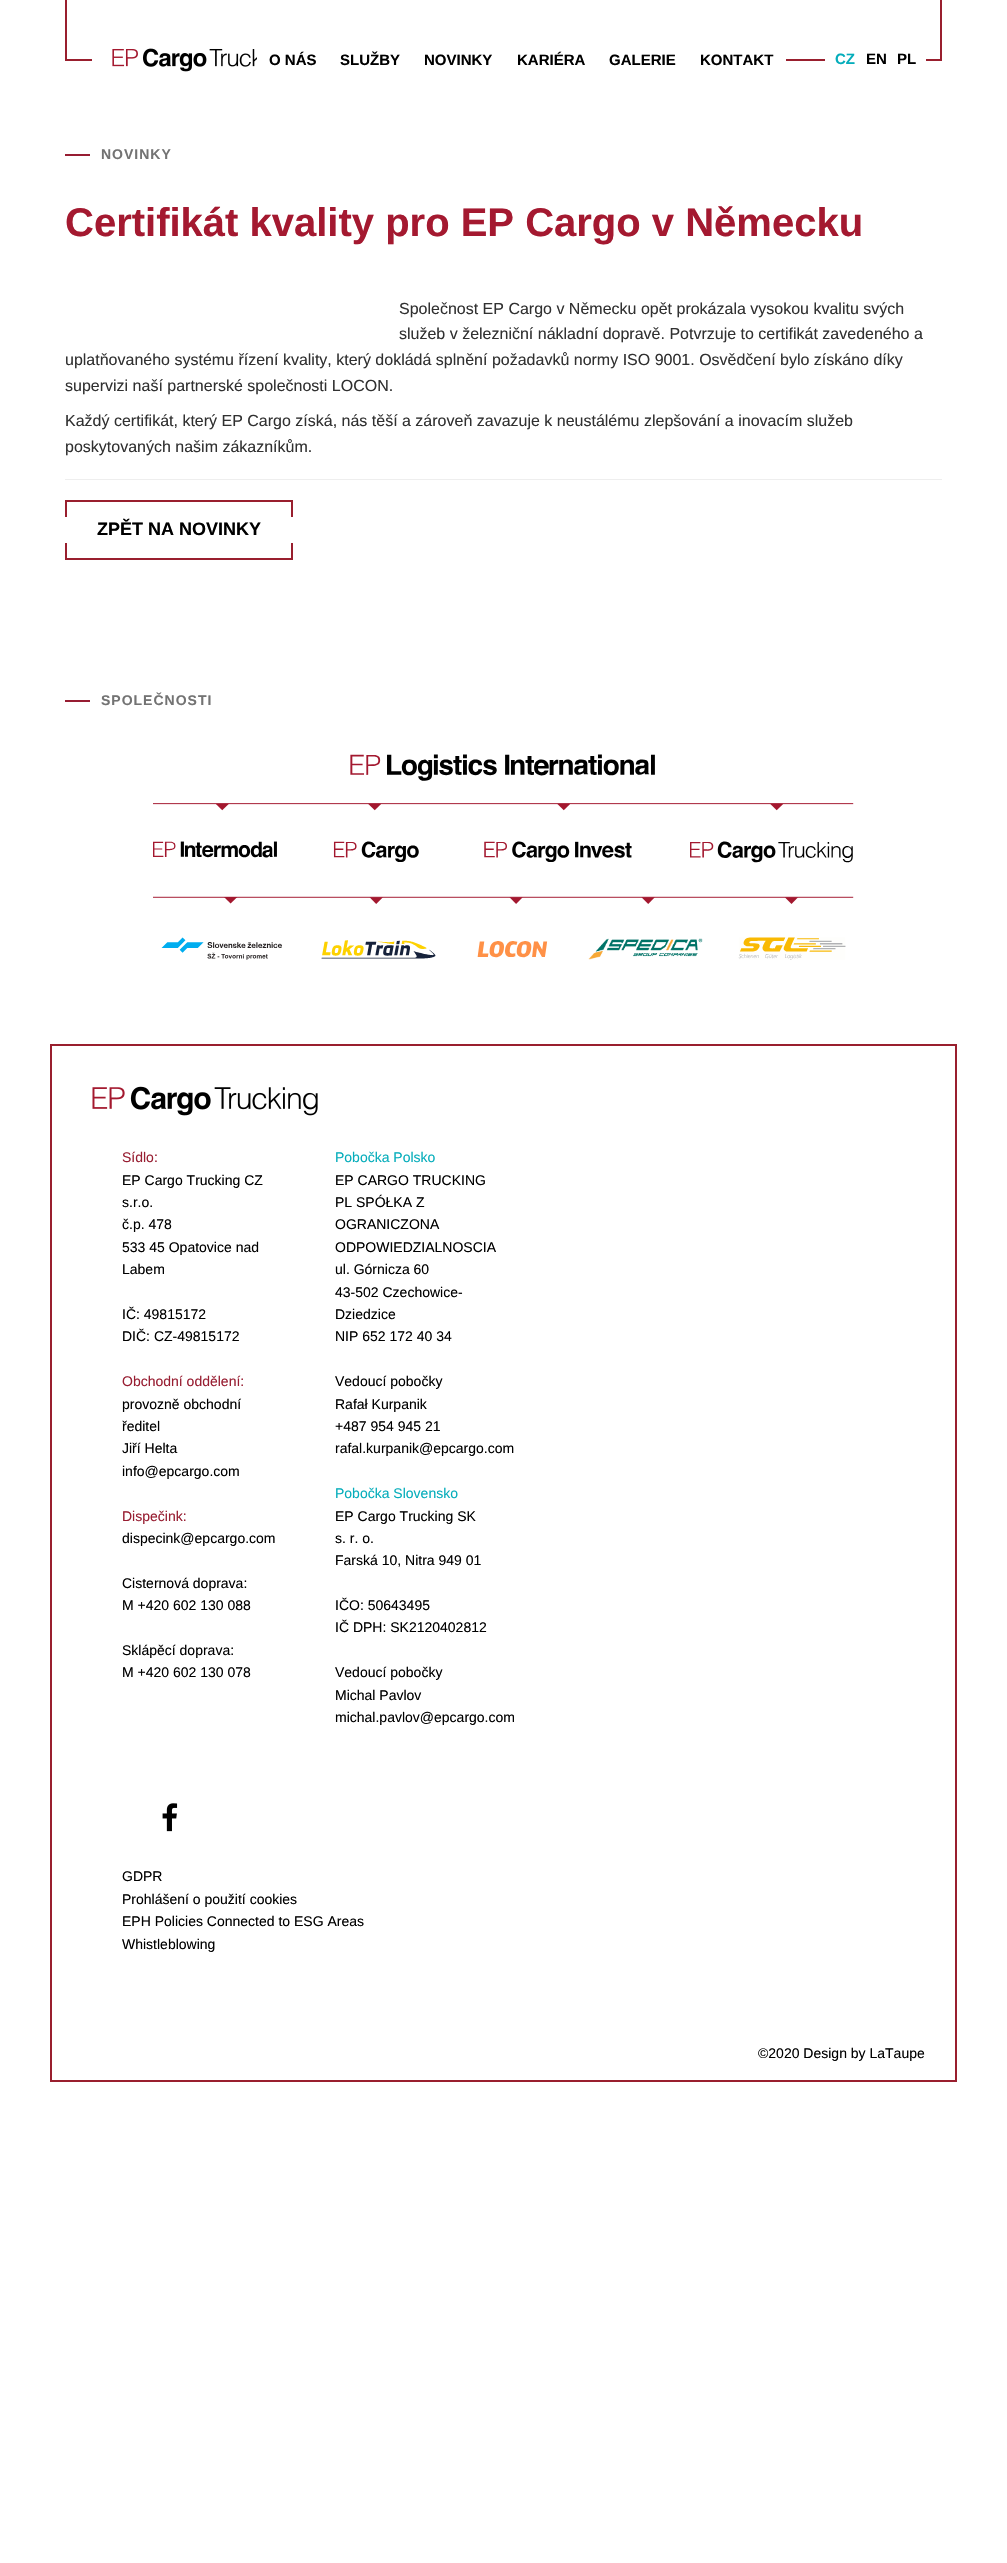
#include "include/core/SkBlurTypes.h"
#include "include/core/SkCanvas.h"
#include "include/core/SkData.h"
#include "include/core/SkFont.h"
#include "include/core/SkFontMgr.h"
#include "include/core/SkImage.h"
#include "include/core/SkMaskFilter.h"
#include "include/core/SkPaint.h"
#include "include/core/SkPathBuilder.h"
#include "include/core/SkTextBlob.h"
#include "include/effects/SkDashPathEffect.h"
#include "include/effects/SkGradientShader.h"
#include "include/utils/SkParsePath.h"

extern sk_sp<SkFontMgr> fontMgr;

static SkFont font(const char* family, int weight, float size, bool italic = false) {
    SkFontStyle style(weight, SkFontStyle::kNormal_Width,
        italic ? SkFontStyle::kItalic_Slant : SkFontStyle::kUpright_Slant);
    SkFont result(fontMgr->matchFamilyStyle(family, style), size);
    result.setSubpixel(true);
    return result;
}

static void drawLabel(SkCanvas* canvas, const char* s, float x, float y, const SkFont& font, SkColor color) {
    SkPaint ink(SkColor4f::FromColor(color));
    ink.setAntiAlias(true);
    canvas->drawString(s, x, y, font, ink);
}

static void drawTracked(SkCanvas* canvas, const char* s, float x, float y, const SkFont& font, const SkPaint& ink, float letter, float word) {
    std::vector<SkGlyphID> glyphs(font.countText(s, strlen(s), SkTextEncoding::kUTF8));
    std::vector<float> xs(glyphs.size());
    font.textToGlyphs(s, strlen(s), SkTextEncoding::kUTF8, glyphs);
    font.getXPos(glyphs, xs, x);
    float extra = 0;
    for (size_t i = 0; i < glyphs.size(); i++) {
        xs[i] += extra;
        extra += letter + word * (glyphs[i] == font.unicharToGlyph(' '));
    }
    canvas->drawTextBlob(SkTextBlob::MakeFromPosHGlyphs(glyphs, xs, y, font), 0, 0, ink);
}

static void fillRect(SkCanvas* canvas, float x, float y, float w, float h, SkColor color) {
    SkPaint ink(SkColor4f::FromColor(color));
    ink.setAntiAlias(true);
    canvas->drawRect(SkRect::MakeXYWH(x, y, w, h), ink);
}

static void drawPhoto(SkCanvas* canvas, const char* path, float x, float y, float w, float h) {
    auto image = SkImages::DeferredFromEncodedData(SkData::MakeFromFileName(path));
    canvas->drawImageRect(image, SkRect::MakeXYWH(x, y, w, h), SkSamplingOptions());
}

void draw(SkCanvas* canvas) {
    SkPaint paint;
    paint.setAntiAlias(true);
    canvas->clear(0xFFFFFFFF);
    fillRect(canvas, 940, 0, 2, 61, 0xFF991F2E);
    fillRect(canvas, 65, 59, 877, 2, 0xFF991F2E);
    fillRect(canvas, 65, 0, 2, 61, 0xFF991F2E);
    fillRect(canvas, 92, 59, 694, 2, 0xFFFFFFFF);
    drawPhoto(canvas, "assets/img1.png", 112, 48, 145, 24);
    SkFont font1 = font("Liberation Sans", 700, 15);
    drawLabel(canvas, "O NÁS", 269, 65, font1, 0xFF000000);
    drawLabel(canvas, "SLUŽBY", 340, 65, font1, 0xFF000000);
    drawLabel(canvas, "NOVINKY", 424, 65, font1, 0xFF000000);
    drawLabel(canvas, "KARIÉRA", 517, 65, font1, 0xFF000000);
    drawLabel(canvas, "GALERIE", 609, 65, font1, 0xFF000000);
    drawLabel(canvas, "KONTAKT", 700, 65, font1, 0xFF000000);
    fillRect(canvas, 825, 59, 101, 2, 0xFFFFFFFF);
    drawLabel(canvas, "CZ", 835, 64, font1, 0xFF05ADBB);
    drawLabel(canvas, "EN", 866, 64, font1, 0xFF000000);
    drawLabel(canvas, "PL", 897, 64, font1, 0xFF000000);
    fillRect(canvas, 65, 154, 25, 2, 0xFF971D32);
    SkFont font2 = font("Liberation Sans", 700, 14);
    paint.setColor(0xFF737373);
    drawTracked(canvas, "NOVINKY", 101, 159, font2, paint, 1, 0);
    SkFont font3 = font("Liberation Sans", 700, 40);
    drawLabel(canvas, "Certifikát kvality pro EP Cargo v Německu", 65, 236, font3, 0xFFA41930);
    SkFont font4 = font("Liberation Sans", 400, 16);
    drawLabel(canvas, "Společnost EP Cargo v Německu opět prokázala vysokou kvalitu svých", 399, 314, font4, 0xFF313131);
    drawLabel(canvas, "služeb v železniční nákladní dopravě. Potvrzuje to certifikát zavedeného a", 399, 339, font4, 0xFF313131);
    drawLabel(canvas, "uplatňovaného systému řízení kvality, který dokládá splnění požadavků normy ISO 9001. Osvědčení bylo získáno díky", 65, 365, font4, 0xFF313131);
    drawLabel(canvas, "supervizi naší partnerské společnosti LOCON.", 65, 391, font4, 0xFF313131);
    drawLabel(canvas, "Každý certifikát, který EP Cargo získá, nás těší a zároveň zavazuje k neustálému zlepšování a inovacím služeb", 65, 426, font4, 0xFF313131);
    drawLabel(canvas, "poskytovaných našim zákazníkům.", 65, 452, font4, 0xFF313131);
    fillRect(canvas, 65, 479, 877, 1, 0xFFEEEEEE);
    paint.setStroke(true);
    paint.setStrokeWidth(2);
    paint.setColor(0xFF991F2E);
    canvas->drawRect(SkRect::MakeXYWH(66, 501, 226, 58), paint);
    fillRect(canvas, 65, 517, 228, 26, 0xFFFFFFFF);
    SkFont font5 = font("Liberation Sans", 700, 18);
    drawLabel(canvas, "ZPĚT NA NOVINKY", 97, 535, font5, 0xFF000000);
    fillRect(canvas, 65, 700, 25, 2, 0xFF971D32);
    paint.setStroke(false);
    paint.setColor(0xFF737373);
    drawTracked(canvas, "SPOLEČNOSTI", 101, 705, font2, paint, 1, 0);
    drawPhoto(canvas, "assets/img2.png", 153, 754, 701, 206);
    paint.setStroke(true);
    paint.setColor(0xFF991F2E);
    canvas->drawRect(SkRect::MakeXYWH(51, 1045, 905, 1036), paint);
    drawPhoto(canvas, "assets/img3.png", 92, 1086, 226, 30);
    SkFont font6 = font("Liberation Sans", 400, 14);
    drawLabel(canvas, "Sídlo:", 122, 1162, font6, 0xFF981E32);
    drawLabel(canvas, "EP Cargo Trucking CZ", 122, 1185, font6, 0xFF000000);
    drawLabel(canvas, "s.r.o.", 122, 1207, font6, 0xFF000000);
    drawLabel(canvas, "č.p. 478", 122, 1229, font6, 0xFF000000);
    drawLabel(canvas, "533 45 Opatovice nad", 122, 1252, font6, 0xFF000000);
    drawLabel(canvas, "Labem", 122, 1274, font6, 0xFF000000);
    drawLabel(canvas, "IČ: 49815172", 122, 1319, font6, 0xFF000000);
    drawLabel(canvas, "DIČ: CZ-49815172", 122, 1341, font6, 0xFF000000);
    drawLabel(canvas, "Obchodní oddělení:", 122, 1386, font6, 0xFF981E32);
    drawLabel(canvas, "provozně obchodní", 122, 1409, font6, 0xFF000000);
    drawLabel(canvas, "ředitel", 122, 1431, font6, 0xFF000000);
    drawLabel(canvas, "Jiří Helta", 122, 1453, font6, 0xFF000000);
    drawLabel(canvas, "info@epcargo.com", 122, 1476, font6, 0xFF000000);
    drawLabel(canvas, "Dispečink:", 122, 1521, font6, 0xFF981E32);
    drawLabel(canvas, "dispecink@epcargo.com", 122, 1543, font6, 0xFF000000);
    drawLabel(canvas, "Cisternová doprava:", 122, 1588, font6, 0xFF000000);
    drawLabel(canvas, "M +420 602 130 088", 122, 1610, font6, 0xFF000000);
    drawLabel(canvas, "Sklápěcí doprava:", 122, 1655, font6, 0xFF000000);
    drawLabel(canvas, "M +420 602 130 078", 122, 1677, font6, 0xFF000000);
    drawLabel(canvas, "Pobočka Polsko", 335, 1162, font6, 0xFF05ADBB);
    drawLabel(canvas, "EP CARGO TRUCKING", 335, 1185, font6, 0xFF000000);
    drawLabel(canvas, "PL SPÓŁKA Z", 335, 1207, font6, 0xFF000000);
    drawLabel(canvas, "OGRANICZONA", 335, 1229, font6, 0xFF000000);
    drawLabel(canvas, "ODPOWIEDZIALNOSCIA", 335, 1252, font6, 0xFF000000);
    drawLabel(canvas, "ul. Górnicza 60", 335, 1274, font6, 0xFF000000);
    drawLabel(canvas, "43-502 Czechowice-", 335, 1297, font6, 0xFF000000);
    drawLabel(canvas, "Dziedzice", 335, 1319, font6, 0xFF000000);
    drawLabel(canvas, "NIP 652 172 40 34", 335, 1341, font6, 0xFF000000);
    drawLabel(canvas, "Vedoucí pobočky", 335, 1386, font6, 0xFF000000);
    drawLabel(canvas, "Rafał Kurpanik", 335, 1409, font6, 0xFF000000);
    drawLabel(canvas, "+487 954 945 21", 335, 1431, font6, 0xFF000000);
    drawLabel(canvas, "rafal.kurpanik@epcargo.com", 335, 1453, font6, 0xFF000000);
    drawLabel(canvas, "Pobočka Slovensko", 335, 1498, font6, 0xFF05ADBB);
    drawLabel(canvas, "EP Cargo Trucking SK", 335, 1521, font6, 0xFF000000);
    drawLabel(canvas, "s. r. o.", 335, 1543, font6, 0xFF000000);
    drawLabel(canvas, "Farská 10, Nitra 949 01", 335, 1565, font6, 0xFF000000);
    drawLabel(canvas, "IČO: 50643495", 335, 1610, font6, 0xFF000000);
    drawLabel(canvas, "IČ DPH: SK2120402812", 335, 1632, font6, 0xFF000000);
    drawLabel(canvas, "Vedoucí pobočky", 335, 1677, font6, 0xFF000000);
    drawLabel(canvas, "Michal Pavlov", 335, 1700, font6, 0xFF000000);
    drawLabel(canvas, "michal.pavlov@epcargo.com", 335, 1722, font6, 0xFF000000);
    drawPhoto(canvas, "assets/img4.png", 162, 1803, 16, 29);
    drawLabel(canvas, "GDPR", 122, 1881, font6, 0xFF000000);
    drawLabel(canvas, "Prohlášení o použití cookies", 122, 1904, font6, 0xFF000000);
    drawLabel(canvas, "EPH Policies Connected to ESG Areas", 122, 1926, font6, 0xFF000000);
    drawLabel(canvas, "Whistleblowing", 122, 1949, font6, 0xFF000000);
    drawLabel(canvas, "©2020 Design by LaTaupe", 758, 2058, font6, 0xFF000000);
}
